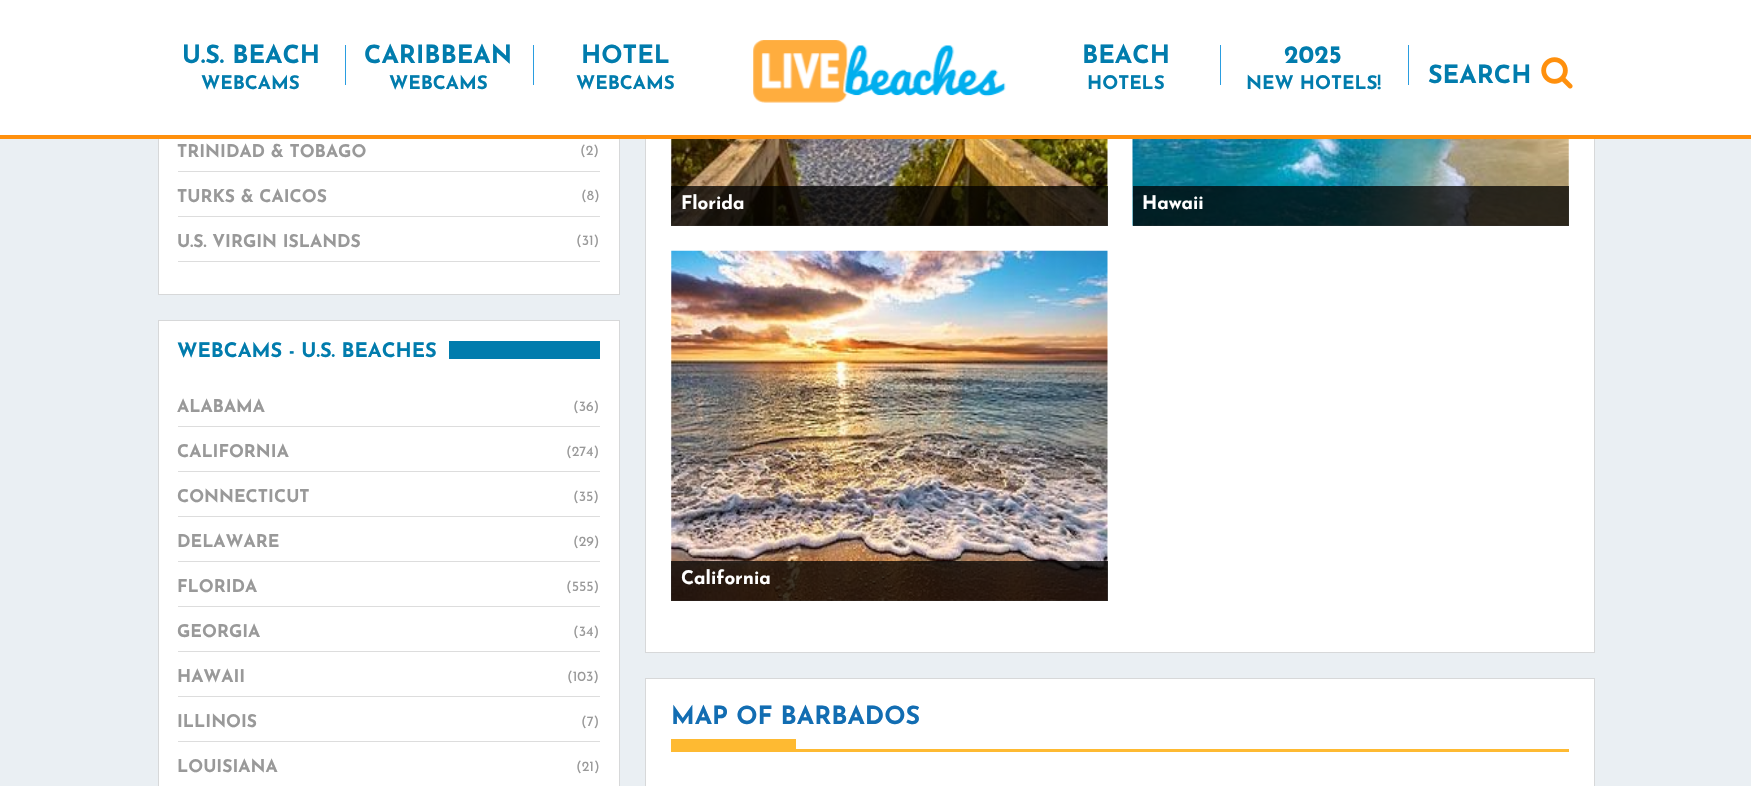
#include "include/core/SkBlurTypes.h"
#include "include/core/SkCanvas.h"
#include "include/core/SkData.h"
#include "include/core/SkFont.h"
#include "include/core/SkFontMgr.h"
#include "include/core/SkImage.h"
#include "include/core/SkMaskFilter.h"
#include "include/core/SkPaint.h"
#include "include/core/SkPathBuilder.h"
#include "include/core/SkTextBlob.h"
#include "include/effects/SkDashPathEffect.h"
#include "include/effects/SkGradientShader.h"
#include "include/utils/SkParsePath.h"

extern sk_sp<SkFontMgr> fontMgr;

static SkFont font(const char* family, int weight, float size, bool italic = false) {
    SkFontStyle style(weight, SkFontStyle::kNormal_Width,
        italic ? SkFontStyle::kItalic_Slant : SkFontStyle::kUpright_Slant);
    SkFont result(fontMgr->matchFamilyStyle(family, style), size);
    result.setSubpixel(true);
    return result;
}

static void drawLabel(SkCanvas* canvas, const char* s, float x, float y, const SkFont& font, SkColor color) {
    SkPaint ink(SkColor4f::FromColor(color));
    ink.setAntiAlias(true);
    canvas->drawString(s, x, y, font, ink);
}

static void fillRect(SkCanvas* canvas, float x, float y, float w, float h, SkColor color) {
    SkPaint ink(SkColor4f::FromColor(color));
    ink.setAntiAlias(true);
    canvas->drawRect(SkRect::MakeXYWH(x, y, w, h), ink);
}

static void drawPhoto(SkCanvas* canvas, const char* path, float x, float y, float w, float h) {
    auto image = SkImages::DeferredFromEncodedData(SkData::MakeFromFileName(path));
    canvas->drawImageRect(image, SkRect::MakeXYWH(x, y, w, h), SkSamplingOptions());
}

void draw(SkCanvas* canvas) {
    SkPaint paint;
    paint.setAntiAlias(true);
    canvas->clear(0xFFEAEFF3);
    fillRect(canvas, 159, 139, 460, 155, 0xFFFFFFFF);
    paint.setStroke(true);
    paint.setStrokeWidth(1);
    paint.setColor(0xFFD7D8D9);
    canvas->drawRect(SkRect::MakeXYWH(158.5f, -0.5f, 461, 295), paint);
    fillRect(canvas, 646, 139, 948, 513, 0xFFFFFFFF);
    canvas->drawRect(SkRect::MakeXYWH(645.5f, -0.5f, 949, 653), paint);
    fillRect(canvas, 0, 0, 1751, 135, 0xFFFFFFFF);
    fillRect(canvas, 0, 135, 1751, 4, 0xFFFF900D);
    drawPhoto(canvas, "assets/img1.png", 753, 40, 253, 63);
    SkFont font1 = font("Josefin Sans", 700, 25);
    drawLabel(canvas, "U.S. BEACH", 182, 63, font1, 0xFF017CAD);
    SkFont font2 = font("Josefin Sans", 700, 18.75f);
    drawLabel(canvas, "WEBCAMS", 201, 89, font2, 0xFF017CAD);
    fillRect(canvas, 345, 45, 1, 40, 0xFF2A9DE0);
    drawLabel(canvas, "CARIBBEAN", 364, 63, font1, 0xFF017CAD);
    drawLabel(canvas, "WEBCAMS", 389, 89, font2, 0xFF017CAD);
    fillRect(canvas, 533, 45, 1, 40, 0xFF2A9DE0);
    drawLabel(canvas, "HOTEL", 581, 63, font1, 0xFF017CAD);
    drawLabel(canvas, "WEBCAMS", 576, 89, font2, 0xFF017CAD);
    drawLabel(canvas, "BEACH", 1082, 63, font1, 0xFF017CAD);
    drawLabel(canvas, "HOTELS", 1087, 89, font2, 0xFF017CAD);
    fillRect(canvas, 1220, 45, 1, 40, 0xFF2A9DE0);
    drawLabel(canvas, "2025", 1284, 63, font1, 0xFF017CAD);
    drawLabel(canvas, "NEW HOTELS!", 1246, 89, font2, 0xFF017CAD);
    fillRect(canvas, 1408, 45, 1, 40, 0xFF2A9DE0);
    drawLabel(canvas, "SEARCH", 1428, 83, font1, 0xFF017CAD);
    drawPhoto(canvas, "assets/img2.png", 1541, 57, 32, 32);
    fillRect(canvas, 178, 171, 422, 1, 0xFFDDDDDD);
    SkFont font3 = font("Josefin Sans", 700, 17.5f);
    drawLabel(canvas, "TRINIDAD & TOBAGO", 177, 157, font3, 0xFF999999);
    SkFont font4 = font("Josefin Sans", 400, 14);
    drawLabel(canvas, "(2)", 580, 155, font4, 0xFF999999);
    fillRect(canvas, 178, 216, 422, 1, 0xFFDDDDDD);
    drawLabel(canvas, "TURKS & CAICOS", 177, 202, font3, 0xFF999999);
    drawLabel(canvas, "(8)", 581, 200, font4, 0xFF999999);
    fillRect(canvas, 178, 261, 422, 1, 0xFFDDDDDD);
    drawLabel(canvas, "U.S. VIRGIN ISLANDS", 177, 247, font3, 0xFF999999);
    drawLabel(canvas, "(31)", 576, 245, font4, 0xFF999999);
    paint.setStroke(false);
    paint.setColor(0xFFFFFFFF);
    canvas->drawRect(SkRect::MakeXYWH(158.5f, 320.5f, 461, 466), paint);
    paint.setStroke(true);
    paint.setColor(0xFFD7D8D9);
    canvas->drawRect(SkRect::MakeXYWH(158.5f, 320.5f, 461, 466), paint);
    SkFont font5 = font("Josefin Sans", 700, 20);
    drawLabel(canvas, "WEBCAMS - U.S. BEACHES", 177, 357, font5, 0xFF017CAD);
    fillRect(canvas, 449, 341, 151, 18, 0xFF017CAD);
    fillRect(canvas, 178, 426, 422, 1, 0xFFDDDDDD);
    drawLabel(canvas, "ALABAMA", 177, 412, font3, 0xFF999999);
    drawLabel(canvas, "(36)", 573, 411, font4, 0xFF999999);
    fillRect(canvas, 178, 471, 422, 1, 0xFFDDDDDD);
    drawLabel(canvas, "CALIFORNIA", 177, 457, font3, 0xFF999999);
    drawLabel(canvas, "(274)", 566, 456, font4, 0xFF999999);
    fillRect(canvas, 178, 516, 422, 1, 0xFFDDDDDD);
    drawLabel(canvas, "CONNECTICUT", 177, 502, font3, 0xFF999999);
    drawLabel(canvas, "(35)", 573, 501, font4, 0xFF999999);
    fillRect(canvas, 178, 561, 422, 1, 0xFFDDDDDD);
    drawLabel(canvas, "DELAWARE", 177, 547, font3, 0xFF999999);
    drawLabel(canvas, "(29)", 573, 546, font4, 0xFF999999);
    fillRect(canvas, 178, 606, 422, 1, 0xFFDDDDDD);
    drawLabel(canvas, "FLORIDA", 177, 592, font3, 0xFF999999);
    drawLabel(canvas, "(555)", 566, 591, font4, 0xFF999999);
    fillRect(canvas, 178, 651, 422, 1, 0xFFDDDDDD);
    drawLabel(canvas, "GEORGIA", 177, 637, font3, 0xFF999999);
    drawLabel(canvas, "(34)", 573, 636, font4, 0xFF999999);
    fillRect(canvas, 178, 696, 422, 1, 0xFFDDDDDD);
    drawLabel(canvas, "HAWAII", 177, 682, font3, 0xFF999999);
    drawLabel(canvas, "(103)", 567, 681, font4, 0xFF999999);
    fillRect(canvas, 178, 741, 422, 1, 0xFFDDDDDD);
    drawLabel(canvas, "ILLINOIS", 177, 727, font3, 0xFF999999);
    drawLabel(canvas, "(7)", 581, 726, font4, 0xFF999999);
    drawLabel(canvas, "LOUISIANA", 177, 772, font3, 0xFF999999);
    drawLabel(canvas, "(21)", 576, 771, font4, 0xFF999999);
    drawPhoto(canvas, "assets/img3.png", 671, 139, 437, 87);
    fillRect(canvas, 671, 186, 437, 40, 0xC2000000);
    drawLabel(canvas, "Florida", 681, 209, font2, 0xFFFFFFFF);
    drawPhoto(canvas, "assets/img4.png", 1132, 139, 437, 87);
    fillRect(canvas, 1133, 186, 436, 40, 0xC2000000);
    drawLabel(canvas, "Hawaii", 1142, 209, font2, 0xFFFFFFFF);
    drawPhoto(canvas, "assets/img5.png", 671, 250, 437, 351);
    fillRect(canvas, 671, 561, 437, 40, 0xC2000000);
    drawLabel(canvas, "California", 681, 584, font2, 0xFFFFFFFF);
    paint.setStroke(false);
    paint.setColor(0xFFFFFFFF);
    canvas->drawRect(SkRect::MakeXYWH(645.5f, 678.5f, 949, 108), paint);
    paint.setStroke(true);
    paint.setColor(0xFFD7D8D9);
    canvas->drawRect(SkRect::MakeXYWH(645.5f, 678.5f, 949, 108), paint);
    fillRect(canvas, 671, 749, 898, 3, 0xFFFEBA32);
    drawLabel(canvas, "MAP OF BARBADOS", 671, 724, font1, 0xFF126DB2);
    fillRect(canvas, 671, 739, 125, 10, 0xFFFEBA32);
}
